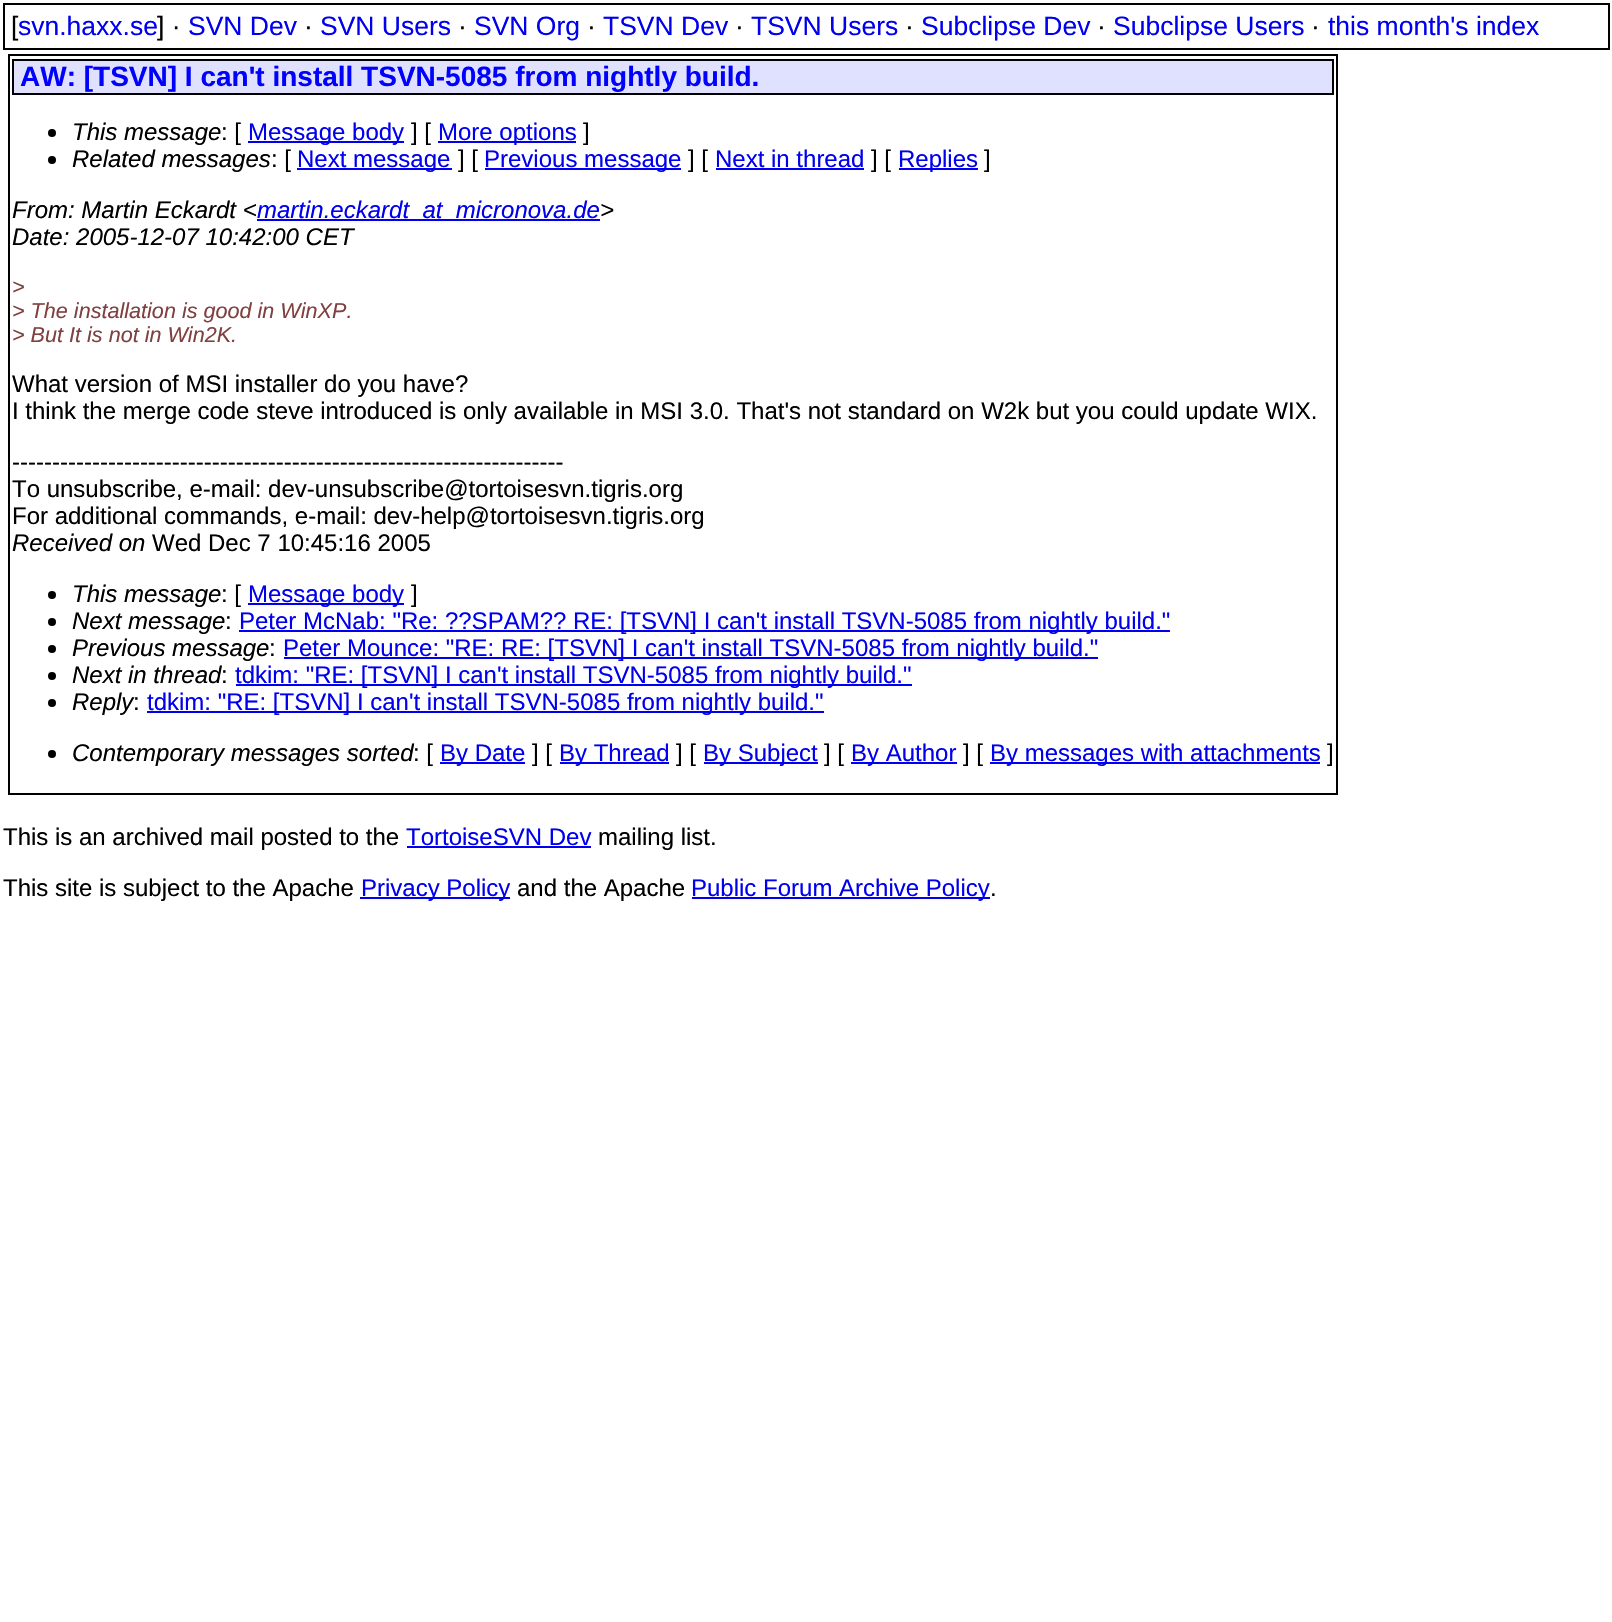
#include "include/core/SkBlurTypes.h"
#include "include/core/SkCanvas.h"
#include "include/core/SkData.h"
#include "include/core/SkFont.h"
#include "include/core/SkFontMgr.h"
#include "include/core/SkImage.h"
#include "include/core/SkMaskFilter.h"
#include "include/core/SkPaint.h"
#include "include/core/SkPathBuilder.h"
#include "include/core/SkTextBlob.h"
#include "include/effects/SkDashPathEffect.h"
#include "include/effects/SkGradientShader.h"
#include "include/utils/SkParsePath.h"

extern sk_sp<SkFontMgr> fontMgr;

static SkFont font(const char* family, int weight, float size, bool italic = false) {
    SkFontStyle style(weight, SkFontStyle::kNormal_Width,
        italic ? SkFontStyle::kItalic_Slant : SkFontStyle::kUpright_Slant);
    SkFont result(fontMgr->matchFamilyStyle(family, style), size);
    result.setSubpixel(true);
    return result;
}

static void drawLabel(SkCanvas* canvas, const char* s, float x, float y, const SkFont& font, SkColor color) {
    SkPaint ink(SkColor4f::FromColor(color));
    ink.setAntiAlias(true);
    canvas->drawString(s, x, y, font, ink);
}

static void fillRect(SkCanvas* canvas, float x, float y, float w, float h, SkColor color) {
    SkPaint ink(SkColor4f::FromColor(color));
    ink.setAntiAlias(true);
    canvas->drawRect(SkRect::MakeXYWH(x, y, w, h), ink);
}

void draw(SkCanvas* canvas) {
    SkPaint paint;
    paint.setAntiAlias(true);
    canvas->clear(0xFFFFFFFF);
    paint.setStroke(true);
    paint.setStrokeWidth(2);
    paint.setColor(0xFF000000);
    canvas->drawRect(SkRect::MakeXYWH(4, 4, 1605, 45), paint);
    SkFont font1 = font("Liberation Sans", 400, 26.5f);
    drawLabel(canvas, "[", 11, 35, font1, 0xFF000000);
    drawLabel(canvas, "svn.haxx.se", 18, 35, font1, 0xFF0000EE);
    drawLabel(canvas, "] ·", 157, 35, font1, 0xFF000000);
    drawLabel(canvas, "SVN Dev", 188, 35, font1, 0xFF0000EE);
    drawLabel(canvas, "·", 304, 35, font1, 0xFF000000);
    drawLabel(canvas, "SVN Users", 320, 35, font1, 0xFF0000EE);
    drawLabel(canvas, "·", 458, 35, font1, 0xFF000000);
    drawLabel(canvas, "SVN Org", 474, 35, font1, 0xFF0000EE);
    drawLabel(canvas, "·", 587, 35, font1, 0xFF000000);
    drawLabel(canvas, "TSVN Dev", 603, 35, font1, 0xFF0000EE);
    drawLabel(canvas, "·", 735, 35, font1, 0xFF000000);
    drawLabel(canvas, "TSVN Users", 751, 35, font1, 0xFF0000EE);
    drawLabel(canvas, "·", 905, 35, font1, 0xFF000000);
    drawLabel(canvas, "Subclipse Dev", 921, 35, font1, 0xFF0000EE);
    drawLabel(canvas, "·", 1097, 35, font1, 0xFF000000);
    drawLabel(canvas, "Subclipse Users", 1113, 35, font1, 0xFF0000EE);
    drawLabel(canvas, "·", 1311, 35, font1, 0xFF000000);
    drawLabel(canvas, "this month's index", 1328, 35, font1, 0xFF0000EE);
    canvas->drawRect(SkRect::MakeXYWH(9, 55, 1328, 739), paint);
    paint.setStroke(false);
    paint.setColor(0xFFE0E0FF);
    canvas->drawRect(SkRect::MakeXYWH(13, 60, 1320, 34), paint);
    paint.setStroke(true);
    paint.setColor(0xFF000000);
    canvas->drawRect(SkRect::MakeXYWH(13, 60, 1320, 34), paint);
    SkFont font2 = font("Liberation Sans", 700, 28);
    drawLabel(canvas, "AW: [TSVN] I can't install TSVN-5085 from nightly build.", 20, 86, font2, 0xFF0000FF);
    paint.setStroke(false);
    canvas->drawCircle(52, 133, 4, paint);
    SkFont font3 = font("Liberation Sans", 400, 24, true);
    drawLabel(canvas, "This message", 72, 140, font3, 0xFF000000);
    SkFont font4 = font("Liberation Sans", 400, 24);
    drawLabel(canvas, ": [", 221, 140, font4, 0xFF000000);
    fillRect(canvas, 248, 141, 156, 2, 0xFF0000EE);
    drawLabel(canvas, "Message body", 248, 140, font4, 0xFF0000EE);
    drawLabel(canvas, "] [", 411, 140, font4, 0xFF000000);
    fillRect(canvas, 438, 141, 138, 2, 0xFF0000EE);
    drawLabel(canvas, "More options", 438, 140, font4, 0xFF0000EE);
    drawLabel(canvas, "]", 583, 140, font4, 0xFF000000);
    canvas->drawCircle(52, 160, 4, paint);
    drawLabel(canvas, "Related messages", 72, 167, font3, 0xFF000000);
    drawLabel(canvas, ": [", 271, 167, font4, 0xFF000000);
    fillRect(canvas, 297, 168, 155, 2, 0xFF0000EE);
    drawLabel(canvas, "Next message", 297, 167, font4, 0xFF0000EE);
    drawLabel(canvas, "] [", 458, 167, font4, 0xFF000000);
    fillRect(canvas, 485, 168, 196, 2, 0xFF0000EE);
    drawLabel(canvas, "Previous message", 484, 167, font4, 0xFF0000EE);
    drawLabel(canvas, "] [", 688, 167, font4, 0xFF000000);
    drawLabel(canvas, "Next in thread", 715, 167, font4, 0xFF0000EE);
    fillRect(canvas, 716, 168, 148, 2, 0xFF0000EE);
    drawLabel(canvas, "] [", 871, 167, font4, 0xFF000000);
    fillRect(canvas, 899, 168, 79, 2, 0xFF0000EE);
    drawLabel(canvas, "Replies", 898, 167, font4, 0xFF0000EE);
    drawLabel(canvas, "]", 984, 167, font4, 0xFF000000);
    drawLabel(canvas, "From: Martin Eckardt <", 12, 218, font3, 0xFF000000);
    fillRect(canvas, 257, 219, 343, 2, 0xFF0000EE);
    drawLabel(canvas, "martin.eckardt_at_micronova.de", 257, 218, font3, 0xFF0000EE);
    drawLabel(canvas, ">", 600, 218, font3, 0xFF000000);
    drawLabel(canvas, "Date: 2005-12-07 10:42:00 CET", 12, 245, font3, 0xFF000000);
    SkFont font5 = font("Liberation Sans", 400, 21.6f, true);
    drawLabel(canvas, ">", 12, 294, font5, 0xFF804040);
    drawLabel(canvas, "> The installation is good in WinXP.", 12, 318, font5, 0xFF804040);
    drawLabel(canvas, "> But It is not in Win2K.", 12, 342, font5, 0xFF804040);
    drawLabel(canvas, "What version of MSI installer do you have?", 12, 392, font4, 0xFF000000);
    drawLabel(canvas, "I think the merge code steve introduced is only available in MSI 3.0. That's not standard on W2k but you could update WIX.", 12, 419, font4, 0xFF000000);
    drawLabel(canvas, "---------------------------------------------------------------------", 12, 470, font4, 0xFF000000);
    drawLabel(canvas, "To unsubscribe, e-mail: dev-unsubscribe@tortoisesvn.tigris.org", 12, 497, font4, 0xFF000000);
    drawLabel(canvas, "For additional commands, e-mail: dev-help@tortoisesvn.tigris.org", 12, 524, font4, 0xFF000000);
    drawLabel(canvas, "Received on", 12, 551, font3, 0xFF000000);
    drawLabel(canvas, "Wed Dec 7 10:45:16 2005", 152, 551, font4, 0xFF000000);
    canvas->drawCircle(52, 595, 4, paint);
    drawLabel(canvas, "This message", 72, 602, font3, 0xFF000000);
    drawLabel(canvas, ": [", 221, 602, font4, 0xFF000000);
    fillRect(canvas, 248, 603, 156, 2, 0xFF0000EE);
    drawLabel(canvas, "Message body", 248, 602, font4, 0xFF0000EE);
    drawLabel(canvas, "]", 411, 602, font4, 0xFF000000);
    canvas->drawCircle(52, 622, 4, paint);
    drawLabel(canvas, "Next message", 72, 629, font3, 0xFF000000);
    drawLabel(canvas, ":", 225, 629, font4, 0xFF000000);
    fillRect(canvas, 239, 630, 931, 2, 0xFF0000EE);
    drawLabel(canvas, "Peter McNab: \"Re: ?\077SPAM?\077 RE: [TSVN] I can't install TSVN-5085 from nightly build.\"", 239, 629, font4, 0xFF0000EE);
    canvas->drawCircle(52, 649, 4, paint);
    drawLabel(canvas, "Previous message", 72, 656, font3, 0xFF000000);
    drawLabel(canvas, ":", 269, 656, font4, 0xFF000000);
    fillRect(canvas, 284, 657, 814, 2, 0xFF0000EE);
    drawLabel(canvas, "Peter Mounce: \"RE: RE: [TSVN] I can't install TSVN-5085 from nightly build.\"", 283, 656, font4, 0xFF0000EE);
    canvas->drawCircle(52, 676, 4, paint);
    drawLabel(canvas, "Next in thread", 72, 683, font3, 0xFF000000);
    drawLabel(canvas, ":", 221, 683, font4, 0xFF000000);
    fillRect(canvas, 236, 684, 676, 2, 0xFF0000EE);
    drawLabel(canvas, "tdkim: \"RE: [TSVN] I can't install TSVN-5085 from nightly build.\"", 235, 683, font4, 0xFF0000EE);
    canvas->drawCircle(52, 703, 4, paint);
    drawLabel(canvas, "Reply", 72, 710, font3, 0xFF000000);
    drawLabel(canvas, ":", 133, 710, font4, 0xFF000000);
    fillRect(canvas, 147, 711, 677, 2, 0xFF0000EE);
    drawLabel(canvas, "tdkim: \"RE: [TSVN] I can't install TSVN-5085 from nightly build.\"", 147, 710, font4, 0xFF0000EE);
    canvas->drawCircle(52, 754, 4, paint);
    drawLabel(canvas, "Contemporary messages sorted", 72, 761, font3, 0xFF000000);
    drawLabel(canvas, ": [", 413, 761, font4, 0xFF000000);
    fillRect(canvas, 440, 762, 85, 2, 0xFF0000EE);
    drawLabel(canvas, "By Date", 440, 761, font4, 0xFF0000EE);
    drawLabel(canvas, "] [", 532, 761, font4, 0xFF000000);
    fillRect(canvas, 560, 762, 109, 2, 0xFF0000EE);
    drawLabel(canvas, "By Thread", 559, 761, font4, 0xFF0000EE);
    drawLabel(canvas, "] [", 676, 761, font4, 0xFF000000);
    fillRect(canvas, 704, 762, 114, 2, 0xFF0000EE);
    drawLabel(canvas, "By Subject", 703, 761, font4, 0xFF0000EE);
    drawLabel(canvas, "] [", 824, 761, font4, 0xFF000000);
    fillRect(canvas, 851, 762, 106, 2, 0xFF0000EE);
    drawLabel(canvas, "By Author", 851, 761, font4, 0xFF0000EE);
    drawLabel(canvas, "] [", 963, 761, font4, 0xFF000000);
    fillRect(canvas, 990, 762, 330, 2, 0xFF0000EE);
    drawLabel(canvas, "By messages with attachments", 990, 761, font4, 0xFF0000EE);
    drawLabel(canvas, "]", 1327, 761, font4, 0xFF000000);
    drawLabel(canvas, "This is an archived mail posted to the", 3, 845, font4, 0xFF000000);
    drawLabel(canvas, "TortoiseSVN Dev", 406, 845, font4, 0xFF0000EE);
    fillRect(canvas, 407, 846, 184, 2, 0xFF0000EE);
    drawLabel(canvas, "mailing list.", 598, 845, font4, 0xFF000000);
    drawLabel(canvas, "This site is subject to the Apache", 3, 896, font4, 0xFF000000);
    fillRect(canvas, 360, 897, 150, 2, 0xFF0000EE);
    drawLabel(canvas, "Privacy Policy", 361, 896, font4, 0xFF0000EE);
    drawLabel(canvas, "and the Apache", 517, 896, font4, 0xFF000000);
    fillRect(canvas, 692, 897, 298, 2, 0xFF0000EE);
    drawLabel(canvas, "Public Forum Archive Policy", 691, 896, font4, 0xFF0000EE);
    drawLabel(canvas, ".", 990, 896, font4, 0xFF000000);
}
